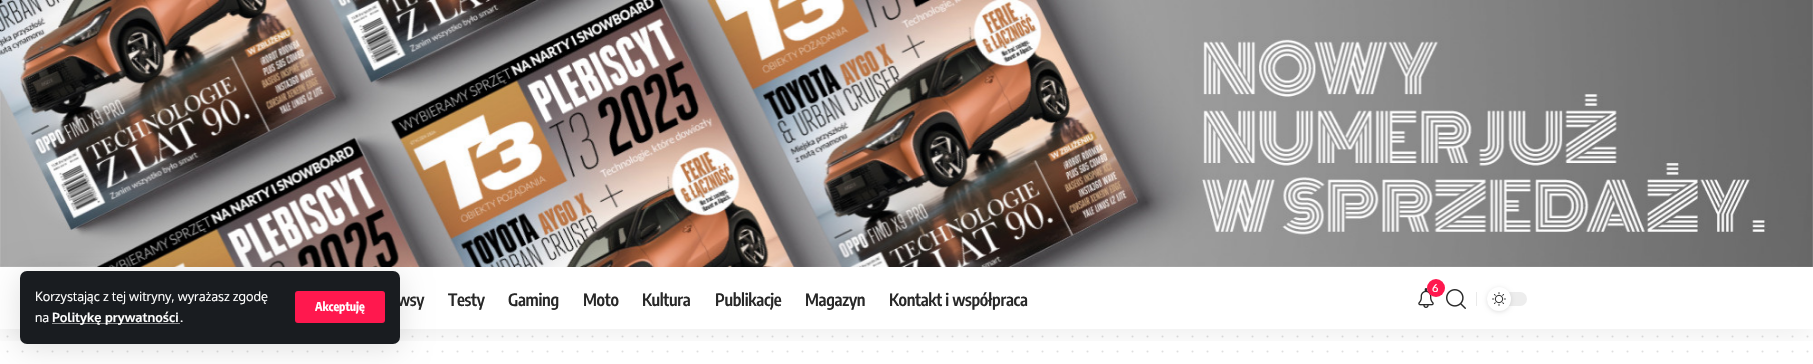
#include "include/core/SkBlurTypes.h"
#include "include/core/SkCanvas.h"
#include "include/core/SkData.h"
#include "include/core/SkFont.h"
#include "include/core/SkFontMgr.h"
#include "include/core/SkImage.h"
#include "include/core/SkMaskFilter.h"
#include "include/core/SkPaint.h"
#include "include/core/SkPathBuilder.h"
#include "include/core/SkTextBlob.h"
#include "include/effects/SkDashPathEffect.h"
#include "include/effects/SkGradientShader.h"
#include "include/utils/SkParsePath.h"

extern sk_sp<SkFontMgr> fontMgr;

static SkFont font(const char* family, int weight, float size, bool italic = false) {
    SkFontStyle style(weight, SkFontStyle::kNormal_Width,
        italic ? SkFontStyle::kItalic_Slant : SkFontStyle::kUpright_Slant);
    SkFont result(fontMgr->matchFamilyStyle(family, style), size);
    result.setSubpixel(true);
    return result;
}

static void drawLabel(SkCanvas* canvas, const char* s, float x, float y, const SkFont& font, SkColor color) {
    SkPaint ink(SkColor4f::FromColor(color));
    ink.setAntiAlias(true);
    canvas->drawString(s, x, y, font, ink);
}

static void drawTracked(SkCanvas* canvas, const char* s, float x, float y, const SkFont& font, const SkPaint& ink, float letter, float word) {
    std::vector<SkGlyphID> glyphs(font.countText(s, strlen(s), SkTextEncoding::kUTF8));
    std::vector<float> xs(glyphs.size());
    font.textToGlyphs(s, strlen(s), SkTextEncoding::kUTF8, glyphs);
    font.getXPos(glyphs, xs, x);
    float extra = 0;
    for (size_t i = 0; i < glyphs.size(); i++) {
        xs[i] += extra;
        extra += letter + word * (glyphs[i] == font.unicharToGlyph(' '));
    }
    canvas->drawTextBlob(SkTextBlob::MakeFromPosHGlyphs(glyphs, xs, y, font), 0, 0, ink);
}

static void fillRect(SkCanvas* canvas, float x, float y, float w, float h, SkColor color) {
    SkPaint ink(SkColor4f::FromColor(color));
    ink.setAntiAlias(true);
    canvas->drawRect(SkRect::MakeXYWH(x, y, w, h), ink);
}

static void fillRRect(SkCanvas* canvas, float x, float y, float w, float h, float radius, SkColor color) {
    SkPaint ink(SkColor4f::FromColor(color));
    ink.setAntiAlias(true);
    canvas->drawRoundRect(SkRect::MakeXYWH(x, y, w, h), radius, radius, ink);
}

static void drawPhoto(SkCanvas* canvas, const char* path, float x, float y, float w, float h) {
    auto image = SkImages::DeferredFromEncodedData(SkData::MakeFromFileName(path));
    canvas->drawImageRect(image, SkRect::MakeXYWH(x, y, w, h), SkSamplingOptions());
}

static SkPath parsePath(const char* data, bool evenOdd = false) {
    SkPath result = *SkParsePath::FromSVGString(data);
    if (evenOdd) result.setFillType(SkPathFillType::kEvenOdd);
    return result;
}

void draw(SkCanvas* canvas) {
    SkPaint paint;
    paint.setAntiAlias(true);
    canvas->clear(0xFFFFFFFF);
    drawPhoto(canvas, "assets/img1.png", 0, 0, 1813, 267);
    paint.setStroke(true);
    paint.setStrokeWidth(2);
    paint.setStrokeCap(SkPaint::kRound_Cap);
    paint.setColor(0xFFDFDFDF);
    paint.setPathEffect(SkDashPathEffect::Make({{0, 15}}, 0));
    canvas->drawPath(parsePath("M7.5 336.5H1807.7"), paint);
    paint.setPathEffect(nullptr);
    paint.setPathEffect(SkDashPathEffect::Make({{0, 15}}, 0));
    canvas->drawPath(parsePath("M7.5 351.5H1807.7"), paint);
    paint.setPathEffect(nullptr);
    paint.setStroke(false);
    paint.setColor(0x1F000000);
    paint.setMaskFilter(SkMaskFilter::MakeBlur(kNormal_SkBlurStyle, 15));
    canvas->drawRoundRect(SkRect::MakeXYWH(20, 275, 380, 73), 7, 7, paint);
    paint.setMaskFilter(nullptr);
    canvas->save();
    canvas->clipRect(SkRect::MakeXYWH(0, 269, 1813, 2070));
    canvas->clipRect(SkRect::MakeXYWH(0, 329, 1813, 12));
    paint.setColor(0x12000000);
    paint.setMaskFilter(SkMaskFilter::MakeBlur(kNormal_SkBlurStyle, 15));
    canvas->drawRect(SkRect::MakeXYWH(0, 273, 1813, 60), paint);
    paint.setMaskFilter(nullptr);
    canvas->restore();
    SkFont font1 = font("Encode Sans Condensed", 600, 17);
    paint.setColor(0xFF282828);
    drawTracked(canvas, "wsy", 397, 306, font1, paint, -0.3f, 0);
    fillRRect(canvas, 20, 271, 380, 73, 7, 0xFF191C20);
    SkFont font2 = font("Oxygen", 400, 12.75f);
    drawLabel(canvas, "Korzystając z tej witryny, wyrażasz zgodę", 35, 301, font2, 0xFFFFFFFF);
    drawLabel(canvas, "na", 35, 322, font2, 0xFFFFFFFF);
    paint.setStroke(true);
    paint.setStrokeWidth(1);
    paint.setStrokeCap(SkPaint::kButt_Cap);
    paint.setColor(0xFFFFFFFF);
    paint.setPathEffect(SkDashPathEffect::Make({{1, 1}}, 0));
    canvas->drawPath(parsePath("M52.5 323.5H179.5"), paint);
    paint.setPathEffect(nullptr);
    SkFont font3 = font("Oxygen", 700, 12.75f);
    drawLabel(canvas, "Politykę prywatności", 52, 322, font3, 0xFFFFFFFF);
    drawLabel(canvas, ".", 180, 322, font2, 0xFFFFFFFF);
    fillRRect(canvas, 295, 291, 90, 32, 3, 0xFFFF184E);
    SkFont font4 = font("Encode Sans Condensed", 700, 12);
    drawLabel(canvas, "Akceptuję", 315, 311, font4, 0xFFFFFFFF);
    drawPhoto(canvas, "assets/img2.png", 1418, 288, 16, 20);
    paint.setStroke(false);
    paint.setColor(0xFFFF184E);
    canvas->drawCircle(1436, 288, 9, paint);
    SkFont font5 = font("Oxygen", 400, 11);
    drawLabel(canvas, "6", 1432, 292, font5, 0xFFFFFFFF);
    drawPhoto(canvas, "assets/img3.png", 1446, 289, 20, 20);
    fillRect(canvas, 1476, 292, 1, 14, 0xFFEAEAEA);
    fillRRect(canvas, 1487, 292, 40, 14, 7, 0xFFEDEDED);
    paint.setColor(0x1F000000);
    paint.setMaskFilter(SkMaskFilter::MakeBlur(kNormal_SkBlurStyle, 2));
    canvas->drawRoundRect(SkRect::MakeXYWH(1487, 288, 24, 24), 12, 12, paint);
    paint.setMaskFilter(nullptr);
    paint.setColor(0xFFFFFFFF);
    canvas->drawCircle(1499, 299, 12, paint);
    drawPhoto(canvas, "assets/img4.png", 1492, 292, 14, 14);
    paint.setColor(0xFF282828);
    drawTracked(canvas, "Testy", 448, 306, font1, paint, -0.3f, 0);
    drawTracked(canvas, "Gaming", 508, 306, font1, paint, -0.3f, 0);
    drawTracked(canvas, "Moto", 583, 306, font1, paint, -0.3f, 0);
    drawTracked(canvas, "Kultura", 642, 306, font1, paint, -0.3f, 0);
    drawTracked(canvas, "Publikacje", 715, 306, font1, paint, -0.3f, 0);
    drawTracked(canvas, "Magazyn", 805, 306, font1, paint, -0.3f, 0);
    drawTracked(canvas, "Kontakt i współpraca", 889, 306, font1, paint, -0.3f, 0);
}
